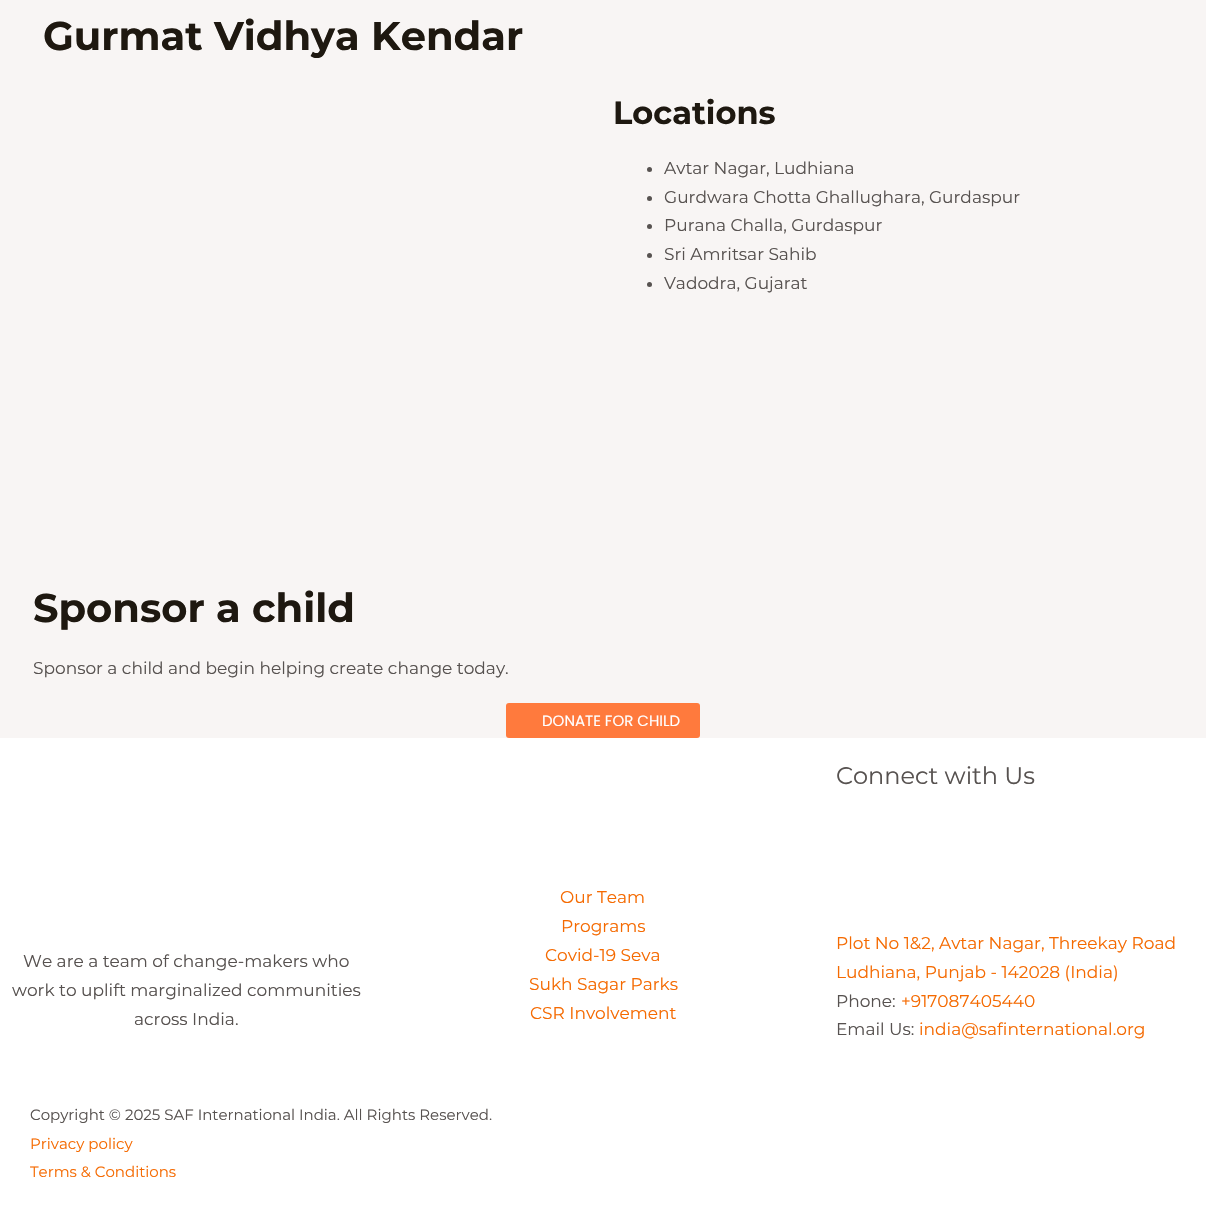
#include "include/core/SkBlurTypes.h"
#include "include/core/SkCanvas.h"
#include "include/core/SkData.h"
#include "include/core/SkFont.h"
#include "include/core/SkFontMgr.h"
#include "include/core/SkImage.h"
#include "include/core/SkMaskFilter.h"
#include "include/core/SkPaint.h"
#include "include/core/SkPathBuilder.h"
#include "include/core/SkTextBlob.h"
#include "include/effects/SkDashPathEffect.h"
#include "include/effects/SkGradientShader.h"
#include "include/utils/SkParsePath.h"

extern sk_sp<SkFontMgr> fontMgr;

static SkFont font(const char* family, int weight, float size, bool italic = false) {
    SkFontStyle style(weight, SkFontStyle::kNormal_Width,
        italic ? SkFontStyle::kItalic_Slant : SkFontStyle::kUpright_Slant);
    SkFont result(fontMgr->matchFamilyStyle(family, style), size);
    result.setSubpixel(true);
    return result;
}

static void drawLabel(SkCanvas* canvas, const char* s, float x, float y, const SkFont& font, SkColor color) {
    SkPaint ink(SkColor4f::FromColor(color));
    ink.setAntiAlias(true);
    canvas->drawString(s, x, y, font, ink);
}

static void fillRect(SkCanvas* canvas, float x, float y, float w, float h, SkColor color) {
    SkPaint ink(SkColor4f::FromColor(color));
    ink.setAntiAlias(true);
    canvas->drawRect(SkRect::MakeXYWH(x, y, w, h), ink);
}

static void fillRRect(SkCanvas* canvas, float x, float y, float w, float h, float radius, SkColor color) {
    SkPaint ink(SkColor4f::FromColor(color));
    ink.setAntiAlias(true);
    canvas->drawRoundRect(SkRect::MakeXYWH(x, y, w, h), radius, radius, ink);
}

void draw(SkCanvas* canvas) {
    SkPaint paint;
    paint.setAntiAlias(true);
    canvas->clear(0xFFF8F5F4);
    SkFont font1 = font("Montserrat", 700, 40);
    drawLabel(canvas, "Gurmat Vidhya Kendar", 43, 50, font1, 0xFF1E1810);
    SkFont font2 = font("Montserrat", 700, 32);
    drawLabel(canvas, "Locations", 613, 124, font2, 0xFF1E1810);
    paint.setColor(0xFF575250);
    canvas->drawCircle(649.5f, 169.5f, 2.5f, paint);
    SkFont font3 = font("Montserrat", 400, 17);
    drawLabel(canvas, "Avtar Nagar, Ludhiana", 664, 174, font3, 0xFF575250);
    canvas->drawCircle(649.5f, 198.5f, 2.5f, paint);
    drawLabel(canvas, "Gurdwara Chotta Ghallughara, Gurdaspur", 664, 203, font3, 0xFF575250);
    canvas->drawCircle(649.5f, 226.5f, 2.5f, paint);
    drawLabel(canvas, "Purana Challa, Gurdaspur", 664, 231, font3, 0xFF575250);
    canvas->drawCircle(649.5f, 255.5f, 2.5f, paint);
    drawLabel(canvas, "Sri Amritsar Sahib", 664, 260, font3, 0xFF575250);
    canvas->drawCircle(649.5f, 284.5f, 2.5f, paint);
    drawLabel(canvas, "Vadodra, Gujarat", 664, 289, font3, 0xFF575250);
    drawLabel(canvas, "Sponsor a child", 33, 622, font1, 0xFF1E1810);
    drawLabel(canvas, "Sponsor a child and begin helping create change today.", 33, 674, font3, 0xFF575250);
    fillRRect(canvas, 506, 703, 194, 35, 3, 0xFFFF7A3D);
    SkFont font4 = font("Poppins", 400, 15);
    drawLabel(canvas, "DONATE FOR CHILD", 542, 726, font4, 0xFFFFFFFF);
    fillRect(canvas, 0, 738, 1206, 479, 0xFFFFFFFF);
    drawLabel(canvas, "We are a team of change-makers who", 23, 967, font3, 0xFF575250);
    drawLabel(canvas, "work to uplift marginalized communities", 12, 996, font3, 0xFF575250);
    drawLabel(canvas, "across India.", 134, 1025, font3, 0xFF575250);
    drawLabel(canvas, "Our Team", 560, 903, font3, 0xFFF56A01);
    drawLabel(canvas, "Programs", 561, 932, font3, 0xFFF56A01);
    drawLabel(canvas, "Covid-19 Seva", 545, 961, font3, 0xFFF56A01);
    drawLabel(canvas, "Sukh Sagar Parks", 529, 990, font3, 0xFFF56A01);
    drawLabel(canvas, "CSR Involvement", 530, 1019, font3, 0xFFF56A01);
    SkFont font5 = font("Montserrat", 400, 24);
    drawLabel(canvas, "Connect with Us", 836, 784, font5, 0xFF575250);
    drawLabel(canvas, "Plot No 1&2, Avtar Nagar, Threekay Road", 836, 949, font3, 0xFFF56A01);
    drawLabel(canvas, "Ludhiana, Punjab - 142028 (India)", 836, 978, font3, 0xFFF56A01);
    drawLabel(canvas, "Phone:", 836, 1007, font3, 0xFF575250);
    drawLabel(canvas, "+917087405440", 901, 1007, font3, 0xFFF56A01);
    drawLabel(canvas, "Email Us:", 836, 1035, font3, 0xFF575250);
    drawLabel(canvas, "india@safinternational.org", 919, 1035, font3, 0xFFF56A01);
    SkFont font6 = font("Montserrat", 400, 15);
    drawLabel(canvas, "Copyright © 2025 SAF International India. All Rights Reserved.", 30, 1120, font6, 0xFF575250);
    drawLabel(canvas, "Privacy policy", 30, 1149, font6, 0xFFF56A01);
    drawLabel(canvas, "Terms & Conditions", 30, 1177, font6, 0xFFF56A01);
}
